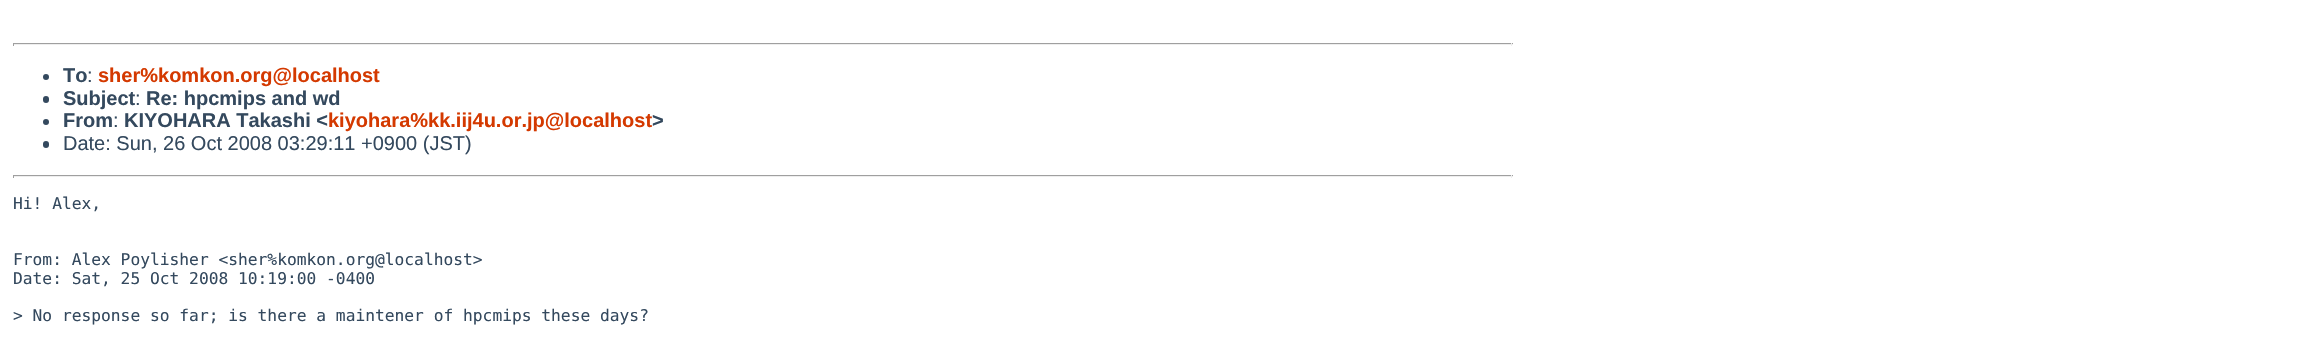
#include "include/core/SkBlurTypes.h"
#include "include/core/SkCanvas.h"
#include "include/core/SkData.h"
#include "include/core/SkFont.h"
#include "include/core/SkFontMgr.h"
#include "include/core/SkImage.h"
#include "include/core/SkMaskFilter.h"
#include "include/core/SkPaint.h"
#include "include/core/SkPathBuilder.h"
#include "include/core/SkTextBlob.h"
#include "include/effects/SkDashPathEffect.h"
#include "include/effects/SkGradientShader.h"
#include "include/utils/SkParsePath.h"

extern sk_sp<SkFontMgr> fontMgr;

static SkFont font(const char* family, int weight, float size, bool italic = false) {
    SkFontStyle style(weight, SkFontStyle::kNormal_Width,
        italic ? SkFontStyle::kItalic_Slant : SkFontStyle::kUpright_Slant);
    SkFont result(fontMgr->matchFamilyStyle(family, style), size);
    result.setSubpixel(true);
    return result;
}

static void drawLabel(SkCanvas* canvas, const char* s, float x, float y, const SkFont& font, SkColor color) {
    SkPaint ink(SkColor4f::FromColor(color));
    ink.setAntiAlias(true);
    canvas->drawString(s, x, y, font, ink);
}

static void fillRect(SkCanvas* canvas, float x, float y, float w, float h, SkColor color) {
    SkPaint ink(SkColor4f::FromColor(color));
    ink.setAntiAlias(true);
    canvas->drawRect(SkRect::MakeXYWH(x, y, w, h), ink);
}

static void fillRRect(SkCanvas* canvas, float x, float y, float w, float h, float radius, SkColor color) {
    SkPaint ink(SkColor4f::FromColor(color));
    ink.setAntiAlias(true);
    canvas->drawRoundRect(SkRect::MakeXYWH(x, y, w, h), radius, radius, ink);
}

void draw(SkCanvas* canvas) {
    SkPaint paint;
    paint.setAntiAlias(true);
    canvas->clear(0xFFFFFFFF);
    fillRect(canvas, 13, 43, 1500, 1, 0xFF9F9F9F);
    fillRect(canvas, 1511, 43, 1, 3, 0xFFEEEEEE);
    fillRect(canvas, 13, 44, 1500, 1, 0xFFEEEEEE);
    fillRect(canvas, 13, 43, 1, 3, 0xFF9F9F9F);
    paint.setColor(0xFF34495E);
    canvas->drawCircle(46, 77, 3, paint);
    SkFont font1 = font("Liberation Sans", 700, 20);
    drawLabel(canvas, "To", 63, 82, font1, 0xFF34495E);
    SkFont font2 = font("Liberation Sans", 400, 20);
    drawLabel(canvas, ":", 87, 82, font2, 0xFF34495E);
    drawLabel(canvas, "sher%komkon.org@localhost", 98, 82, font1, 0xFFD43900);
    fillRRect(canvas, 43, 96, 6, 7, 3, 0xFF34495E);
    drawLabel(canvas, "Subject", 63, 105, font1, 0xFF34495E);
    drawLabel(canvas, ":", 135, 105, font2, 0xFF34495E);
    drawLabel(canvas, "Re: hpcmips and wd", 146, 105, font1, 0xFF34495E);
    canvas->drawCircle(46, 122, 3, paint);
    drawLabel(canvas, "From", 63, 127, font1, 0xFF34495E);
    drawLabel(canvas, ":", 113, 127, font2, 0xFF34495E);
    drawLabel(canvas, "KIYOHARA Takashi <", 124, 127, font1, 0xFF34495E);
    drawLabel(canvas, "kiyohara%kk.iij4u.or.jp@localhost", 328, 127, font1, 0xFFD43900);
    drawLabel(canvas, ">", 652, 127, font1, 0xFF34495E);
    fillRRect(canvas, 43, 141, 6, 7, 3, 0xFF34495E);
    drawLabel(canvas, "Date: Sun, 26 Oct 2008 03:29:11 +0900 (JST)", 63, 150, font2, 0xFF34495E);
    fillRect(canvas, 13, 175, 1500, 1, 0xFF9F9F9F);
    fillRect(canvas, 1511, 175, 1, 3, 0xFFEEEEEE);
    fillRect(canvas, 13, 176, 1500, 1, 0xFFEEEEEE);
    fillRect(canvas, 13, 175, 1, 3, 0xFF9F9F9F);
    SkFont font3 = font("DejaVu Sans Mono", 400, 16.25f);
    drawLabel(canvas, "Hi! Alex,", 13, 209, font3, 0xFF34495E);
    drawLabel(canvas, "From: Alex Poylisher <sher%komkon.org@localhost>", 13, 265, font3, 0xFF34495E);
    drawLabel(canvas, "Date: Sat, 25 Oct 2008 10:19:00 -0400", 13, 284, font3, 0xFF34495E);
    drawLabel(canvas, "> No response so far; is there a maintener of hpcmips these days?", 13, 321, font3, 0xFF34495E);
}
